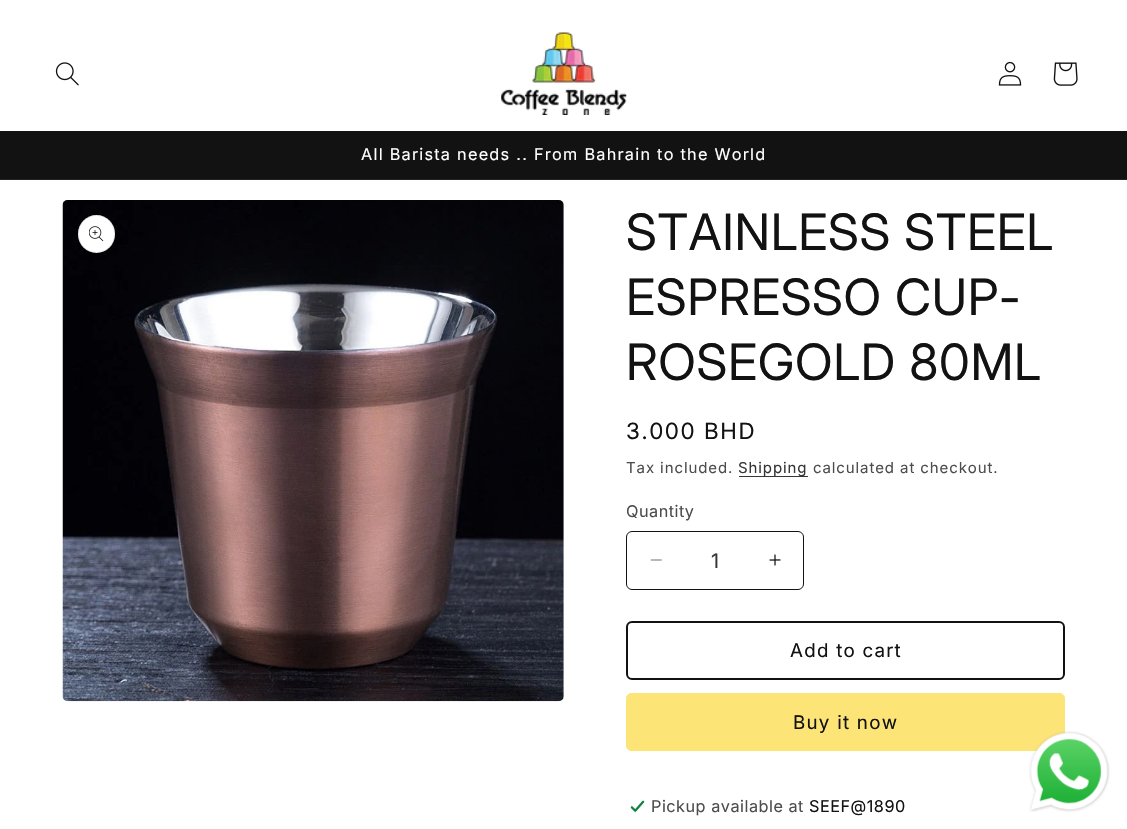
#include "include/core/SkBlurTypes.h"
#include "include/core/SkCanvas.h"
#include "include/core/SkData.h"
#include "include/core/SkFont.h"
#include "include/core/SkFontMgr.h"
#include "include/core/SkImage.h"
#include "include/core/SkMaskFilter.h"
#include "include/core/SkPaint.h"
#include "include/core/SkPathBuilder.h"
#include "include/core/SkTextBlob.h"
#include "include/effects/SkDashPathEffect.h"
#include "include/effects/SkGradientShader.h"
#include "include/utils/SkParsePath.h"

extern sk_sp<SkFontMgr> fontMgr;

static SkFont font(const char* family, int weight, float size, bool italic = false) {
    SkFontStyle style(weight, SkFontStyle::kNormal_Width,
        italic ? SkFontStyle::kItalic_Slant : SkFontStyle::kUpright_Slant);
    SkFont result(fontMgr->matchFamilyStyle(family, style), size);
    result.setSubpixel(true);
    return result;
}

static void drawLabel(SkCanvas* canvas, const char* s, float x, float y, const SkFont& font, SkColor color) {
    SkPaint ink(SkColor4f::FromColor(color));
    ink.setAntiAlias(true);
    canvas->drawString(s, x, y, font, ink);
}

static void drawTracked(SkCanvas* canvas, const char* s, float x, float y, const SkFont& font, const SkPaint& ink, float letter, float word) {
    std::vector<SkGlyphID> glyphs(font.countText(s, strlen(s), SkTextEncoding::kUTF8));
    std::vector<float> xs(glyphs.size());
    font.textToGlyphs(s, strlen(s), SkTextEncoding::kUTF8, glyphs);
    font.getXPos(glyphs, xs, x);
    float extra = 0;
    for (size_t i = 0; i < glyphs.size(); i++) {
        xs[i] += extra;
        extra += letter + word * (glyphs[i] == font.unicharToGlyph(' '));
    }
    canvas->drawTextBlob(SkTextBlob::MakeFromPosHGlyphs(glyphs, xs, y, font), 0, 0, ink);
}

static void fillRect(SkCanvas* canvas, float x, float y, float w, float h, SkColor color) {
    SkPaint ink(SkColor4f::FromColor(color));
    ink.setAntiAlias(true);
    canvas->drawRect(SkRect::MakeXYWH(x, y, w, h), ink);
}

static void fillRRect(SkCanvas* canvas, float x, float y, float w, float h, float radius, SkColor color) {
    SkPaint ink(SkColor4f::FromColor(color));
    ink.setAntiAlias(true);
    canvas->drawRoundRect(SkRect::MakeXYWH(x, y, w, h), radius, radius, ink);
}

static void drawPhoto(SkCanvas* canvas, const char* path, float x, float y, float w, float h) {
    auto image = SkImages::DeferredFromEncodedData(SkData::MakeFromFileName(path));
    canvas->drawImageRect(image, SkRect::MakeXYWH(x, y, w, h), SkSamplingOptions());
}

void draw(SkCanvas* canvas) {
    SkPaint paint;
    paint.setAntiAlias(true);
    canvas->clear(0xFFFFFFFF);
    drawPhoto(canvas, "assets/img1.png", 55, 62, 24, 24);
    drawPhoto(canvas, "assets/img2.png", 501, 32, 126, 83);
    drawPhoto(canvas, "assets/img3.png", 998, 61, 24, 25);
    drawPhoto(canvas, "assets/img4.png", 1053, 62, 25, 24);
    fillRect(canvas, 0, 131, 1127, 48, 0xFF121212);
    fillRect(canvas, 0, 179, 1127, 1, 0xFF252525);
    SkFont font1 = font("Inter", 400, 16.25f);
    paint.setColor(0xFFFFFFFF);
    drawTracked(canvas, "All Barista needs .. From Bahrain to the World", 361, 160, font1, paint, 1.25f, 0);
    drawPhoto(canvas, "assets/img5.png", 62, 200, 502, 502);
    fillRRect(canvas, 78, 215, 37, 38, 18.5f, 0xFFFFFFFF);
    paint.setStroke(true);
    paint.setStrokeWidth(1);
    paint.setColor(0x1A121212);
    canvas->drawRoundRect(SkRect::MakeXYWH(78.5f, 215.5f, 36, 37), 18, 18, paint);
    drawPhoto(canvas, "assets/img6.png", 89, 226, 15, 16);
    SkFont font2 = font("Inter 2", 400, 50);
    paint.setStroke(false);
    paint.setColor(0xFF121212);
    drawTracked(canvas, "STAINLESS STEEL", 626, 250, font2, paint, 0.75f, 0);
    drawTracked(canvas, "ESPRESSO CUP-", 626, 315, font2, paint, 0.75f, 0);
    drawTracked(canvas, "ROSEGOLD 80ML", 626, 380, font2, paint, 0.75f, 0);
    SkFont font3 = font("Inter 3", 400, 22.5f);
    drawTracked(canvas, "3.000 BHD", 626, 439, font3, paint, 1.6f, 0);
    SkFont font4 = font("Inter", 400, 15);
    paint.setColor(0xFF4D4D4D);
    drawTracked(canvas, "Tax included.", 626, 473, font4, paint, 0.9f, 0);
    fillRect(canvas, 739, 476, 69, 1, 0xFF363636);
    paint.setColor(0xFF353535);
    drawTracked(canvas, "Shipping", 738, 473, font4, paint, 0.9f, 0);
    paint.setColor(0xFF4D4D4D);
    drawTracked(canvas, "calculated at checkout.", 813, 473, font4, paint, 0.9f, 0);
    drawTracked(canvas, "Quantity", 626, 517, font1, paint, 0.5f, 0);
    drawPhoto(canvas, "assets/img7.png", 650, 559, 12, 2);
    drawPhoto(canvas, "assets/img8.png", 769, 554, 12, 12);
    paint.setStroke(true);
    paint.setColor(0xFF121212);
    canvas->drawRoundRect(SkRect::MakeXYWH(626.5f, 531.5f, 177, 58), 5.5f, 5.5f, paint);
    SkFont font5 = font("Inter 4", 400, 20);
    drawLabel(canvas, "1", 711, 568, font5, 0xFF353535);
    paint.setStrokeWidth(2);
    canvas->drawRoundRect(SkRect::MakeXYWH(627, 622, 437, 57), 5, 5, paint);
    SkFont font6 = font("Inter", 400, 18.75f);
    paint.setStroke(false);
    drawTracked(canvas, "Add to cart", 790, 657, font6, paint, 1.25f, 0);
    fillRRect(canvas, 626, 693, 439, 58, 6, 0xFFFCE477);
    paint.setStroke(true);
    paint.setStrokeWidth(1);
    paint.setColor(0xFFFCE477);
    canvas->drawRoundRect(SkRect::MakeXYWH(626.5f, 693.5f, 438, 57), 5.5f, 5.5f, paint);
    paint.setStroke(false);
    paint.setColor(0xFF121212);
    drawTracked(canvas, "Buy it now", 793, 729, font6, paint, 1.25f, 0);
    drawPhoto(canvas, "assets/img9.png", 630, 800, 15, 13);
    paint.setColor(0xFF4D4D4D);
    drawTracked(canvas, "Pickup available at", 651, 812, font1, paint, 0.5f, 0);
    paint.setColor(0xFF121212);
    drawTracked(canvas, "SEEF@1890", 809, 812, font1, paint, 0.5f, 0);
    drawPhoto(canvas, "assets/img10.png", 1029, 731, 81, 81);
}
